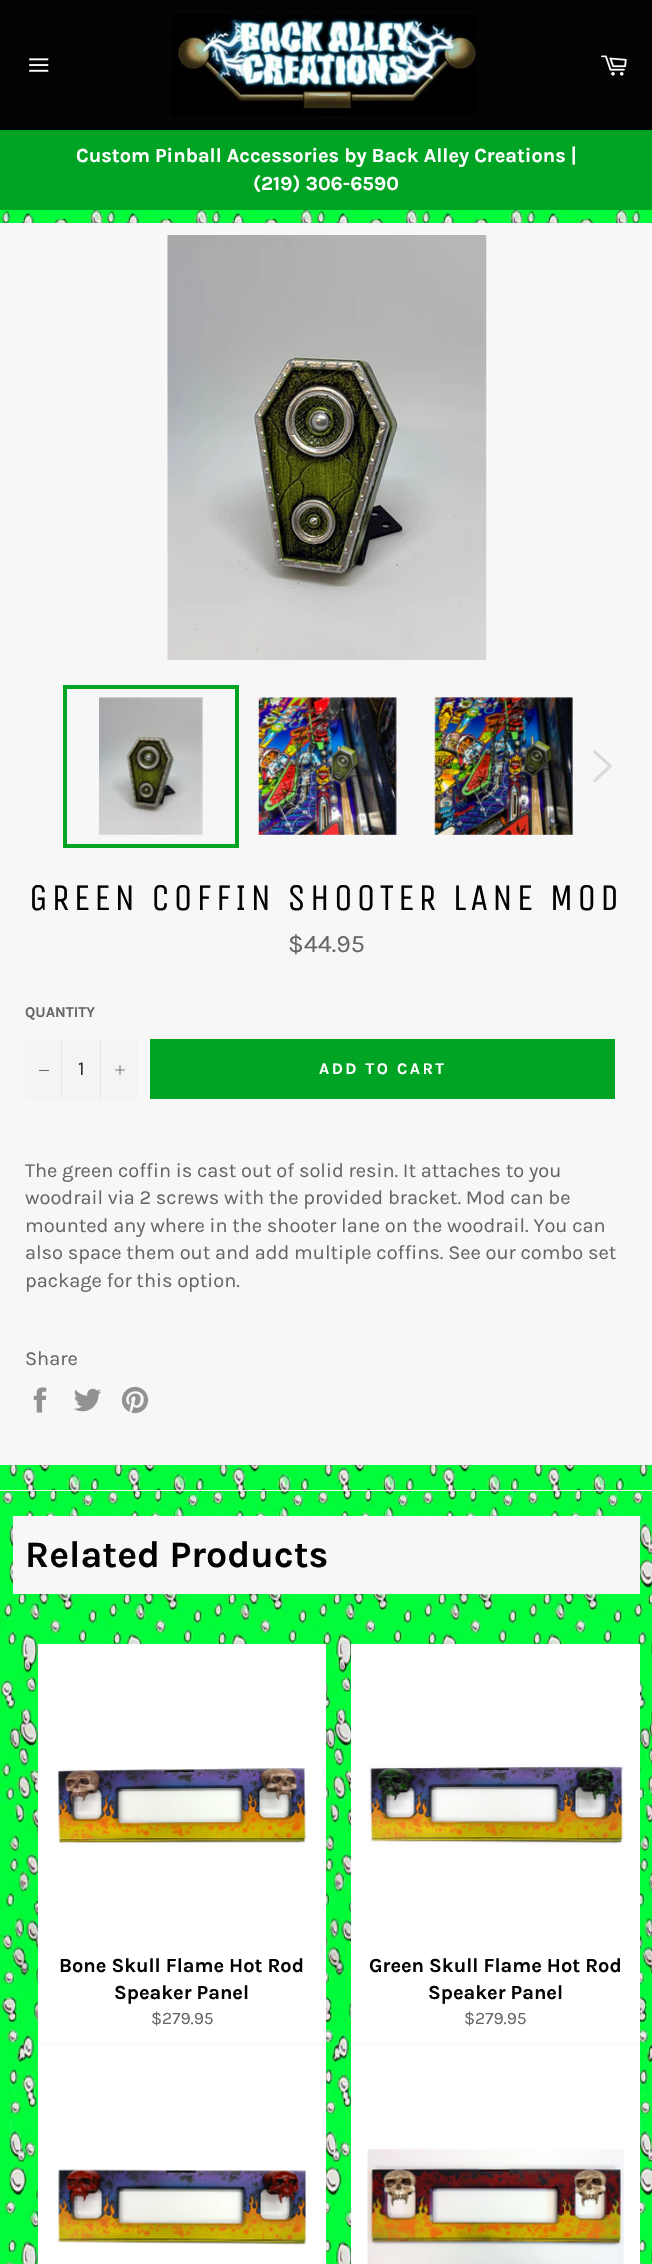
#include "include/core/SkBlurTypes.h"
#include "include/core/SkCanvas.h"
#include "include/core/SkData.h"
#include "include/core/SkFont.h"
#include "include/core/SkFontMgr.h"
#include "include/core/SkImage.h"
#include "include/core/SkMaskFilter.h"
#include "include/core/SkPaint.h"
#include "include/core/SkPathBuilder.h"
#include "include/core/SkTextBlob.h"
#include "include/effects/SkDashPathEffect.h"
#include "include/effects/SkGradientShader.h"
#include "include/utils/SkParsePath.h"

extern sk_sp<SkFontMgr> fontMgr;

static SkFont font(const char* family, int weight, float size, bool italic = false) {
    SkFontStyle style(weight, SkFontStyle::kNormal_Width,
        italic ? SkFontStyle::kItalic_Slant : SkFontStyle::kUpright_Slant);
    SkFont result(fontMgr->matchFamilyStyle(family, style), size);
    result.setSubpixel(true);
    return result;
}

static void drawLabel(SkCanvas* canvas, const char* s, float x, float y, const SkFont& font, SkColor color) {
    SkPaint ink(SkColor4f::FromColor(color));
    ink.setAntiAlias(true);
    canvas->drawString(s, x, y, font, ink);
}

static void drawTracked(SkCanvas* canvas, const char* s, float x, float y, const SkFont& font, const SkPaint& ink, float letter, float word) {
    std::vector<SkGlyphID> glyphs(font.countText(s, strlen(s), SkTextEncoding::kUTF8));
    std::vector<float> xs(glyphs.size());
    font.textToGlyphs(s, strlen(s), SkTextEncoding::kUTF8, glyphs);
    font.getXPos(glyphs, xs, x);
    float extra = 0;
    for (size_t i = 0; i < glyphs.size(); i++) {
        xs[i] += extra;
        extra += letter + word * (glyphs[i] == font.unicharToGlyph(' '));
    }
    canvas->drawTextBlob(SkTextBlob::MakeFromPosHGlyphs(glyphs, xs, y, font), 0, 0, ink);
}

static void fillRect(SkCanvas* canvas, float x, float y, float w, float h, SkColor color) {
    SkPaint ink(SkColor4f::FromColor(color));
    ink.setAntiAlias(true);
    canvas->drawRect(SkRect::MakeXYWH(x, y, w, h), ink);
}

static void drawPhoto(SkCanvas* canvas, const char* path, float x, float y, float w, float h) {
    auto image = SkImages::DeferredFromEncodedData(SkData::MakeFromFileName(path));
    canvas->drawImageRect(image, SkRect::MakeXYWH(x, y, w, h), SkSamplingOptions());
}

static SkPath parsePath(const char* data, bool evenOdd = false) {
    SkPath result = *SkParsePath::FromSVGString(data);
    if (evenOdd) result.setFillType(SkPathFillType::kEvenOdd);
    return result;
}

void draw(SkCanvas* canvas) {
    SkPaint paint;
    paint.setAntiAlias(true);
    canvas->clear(0xFF030303);
    drawPhoto(canvas, "assets/img1.png", 29, 58, 20, 14);
    drawPhoto(canvas, "assets/img2.png", 170, 12, 306, 106);
    drawPhoto(canvas, "assets/img3.png", 601, 55, 26, 21);
    fillRect(canvas, 0, 130, 652, 80, 0xFF00A424);
    SkFont font1 = font("Karla", 700, 20);
    drawLabel(canvas, "Custom Pinball Accessories by Back Alley Creations |", 76, 162, font1, 0xFFFFFFFF);
    drawLabel(canvas, "(219) 306-6590", 253, 190, font1, 0xFFFFFFFF);
    drawPhoto(canvas, "assets/img4.png", 0, 210, 652, 2054);
    fillRect(canvas, 0, 223, 652, 1242, 0xFFF7F7F7);
    drawPhoto(canvas, "assets/img5.png", 167, 235, 320, 425);
    drawPhoto(canvas, "assets/img6.png", 99, 697, 104, 138);
    paint.setStroke(true);
    paint.setStrokeWidth(4);
    paint.setColor(0xFF00A424);
    canvas->drawRect(SkRect::MakeXYWH(65, 687, 172, 159), paint);
    drawPhoto(canvas, "assets/img7.png", 258, 697, 139, 138);
    drawPhoto(canvas, "assets/img8.png", 434, 697, 139, 138);
    paint.setStroke(false);
    paint.setColor(0xFFDADADA);
    canvas->drawPath(parsePath("M592.5 752L595 750L612.5 766L595 782.5L592.5 780.5L608 766Z"), paint);
    SkFont font2 = font("Unica One", 400, 37.5f);
    paint.setColor(0xFF030303);
    drawTracked(canvas, "GREEN COFFIN SHOOTER LANE MOD", 29, 910, font2, paint, 3.75f, 0);
    SkFont font3 = font("Karla", 400, 25);
    drawLabel(canvas, "$44.95", 288, 952, font3, 0xFF666666);
    SkFont font4 = font("Karla", 700, 15);
    drawLabel(canvas, "QUANTITY", 25, 1017, font4, 0xFF666666);
    fillRect(canvas, 25, 1039, 113, 60, 0xFFF4F4F4);
    fillRect(canvas, 61, 1039, 1, 60, 0xFFE7E7E7);
    fillRect(canvas, 39, 1070, 10, 1, 0xFF666666);
    SkFont font5 = font("Karla", 400, 20);
    drawLabel(canvas, "1", 78, 1075, font5, 0xFF333333);
    fillRect(canvas, 100, 1039, 1, 60, 0xFFE7E7E7);
    drawPhoto(canvas, "assets/img9.png", 115, 1065, 10, 10);
    fillRect(canvas, 150, 1039, 465, 60, 0xFF00A424);
    SkFont font6 = font("Karla", 700, 16.25f);
    paint.setColor(0xFFFFFFFF);
    drawTracked(canvas, "ADD TO CART", 319, 1074, font6, paint, 2.5f, 0);
    drawLabel(canvas, "The green coffin is cast out of solid resin. It attaches to you", 25, 1177, font5, 0xFF666666);
    drawLabel(canvas, "woodrail via 2 screws with the provided bracket. Mod can be", 25, 1204, font5, 0xFF666666);
    drawLabel(canvas, "mounted any where in the shooter lane on the woodrail. You can", 25, 1232, font5, 0xFF666666);
    drawLabel(canvas, "also space them out and add multiple coffins. See our combo set", 25, 1259, font5, 0xFF666666);
    drawLabel(canvas, "package for this option.", 25, 1287, font5, 0xFF666666);
    drawLabel(canvas, "Share", 25, 1365, font5, 0xFF666666);
    drawPhoto(canvas, "assets/img10.png", 33, 1387, 14, 26);
    drawPhoto(canvas, "assets/img11.png", 74, 1388, 28, 24);
    drawPhoto(canvas, "assets/img12.png", 121, 1386, 28, 28);
    fillRect(canvas, 0, 1490, 652, 1, 0xFFF7F7F7);
    fillRect(canvas, 13, 1516, 627, 78, 0xFFF7F7F7);
    SkFont font7 = font("Karla", 700, 37.5f);
    drawLabel(canvas, "Related Products", 25, 1567, font7, 0xFF030303);
    fillRect(canvas, 38, 1644, 288, 400, 0xFFFFFFFF);
    fillRect(canvas, 38, 2044, 288, 1, 0xFFF7F7F7);
    drawPhoto(canvas, "assets/img13.png", 57, 1765, 250, 80);
    drawLabel(canvas, "Bone Skull Flame Hot Rod", 59, 1972, font1, 0xFF030303);
    drawLabel(canvas, "Speaker Panel", 114, 1999, font1, 0xFF030303);
    SkFont font8 = font("Karla", 400, 17.5f);
    drawLabel(canvas, "$279.95", 151, 2024, font8, 0xFF666666);
    fillRect(canvas, 351, 1644, 289, 400, 0xFFFFFFFF);
    fillRect(canvas, 351, 2044, 289, 1, 0xFFF7F7F7);
    drawPhoto(canvas, "assets/img14.png", 368, 1764, 256, 81);
    drawLabel(canvas, "Green Skull Flame Hot Rod", 369, 1972, font1, 0xFF030303);
    drawLabel(canvas, "Speaker Panel", 428, 1999, font1, 0xFF030303);
    drawLabel(canvas, "$279.95", 464, 2024, font8, 0xFF666666);
    fillRect(canvas, 38, 2045, 288, 219, 0xFFFFFFFF);
    drawPhoto(canvas, "assets/img15.png", 58, 2169, 249, 77);
    fillRect(canvas, 351, 2045, 289, 219, 0xFFFFFFFF);
    drawPhoto(canvas, "assets/img16.png", 367, 2148, 257, 116);
}
